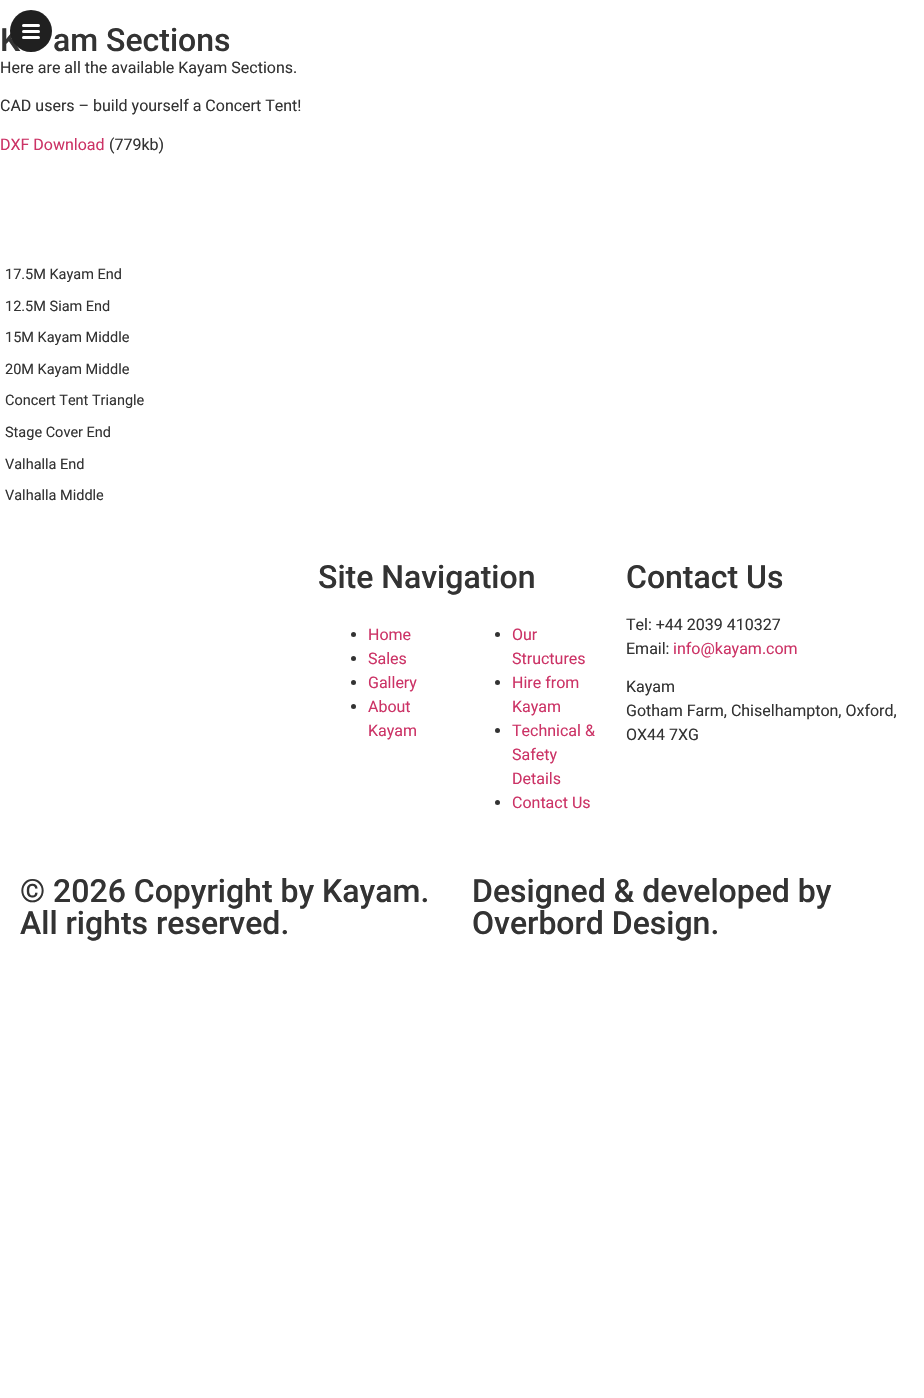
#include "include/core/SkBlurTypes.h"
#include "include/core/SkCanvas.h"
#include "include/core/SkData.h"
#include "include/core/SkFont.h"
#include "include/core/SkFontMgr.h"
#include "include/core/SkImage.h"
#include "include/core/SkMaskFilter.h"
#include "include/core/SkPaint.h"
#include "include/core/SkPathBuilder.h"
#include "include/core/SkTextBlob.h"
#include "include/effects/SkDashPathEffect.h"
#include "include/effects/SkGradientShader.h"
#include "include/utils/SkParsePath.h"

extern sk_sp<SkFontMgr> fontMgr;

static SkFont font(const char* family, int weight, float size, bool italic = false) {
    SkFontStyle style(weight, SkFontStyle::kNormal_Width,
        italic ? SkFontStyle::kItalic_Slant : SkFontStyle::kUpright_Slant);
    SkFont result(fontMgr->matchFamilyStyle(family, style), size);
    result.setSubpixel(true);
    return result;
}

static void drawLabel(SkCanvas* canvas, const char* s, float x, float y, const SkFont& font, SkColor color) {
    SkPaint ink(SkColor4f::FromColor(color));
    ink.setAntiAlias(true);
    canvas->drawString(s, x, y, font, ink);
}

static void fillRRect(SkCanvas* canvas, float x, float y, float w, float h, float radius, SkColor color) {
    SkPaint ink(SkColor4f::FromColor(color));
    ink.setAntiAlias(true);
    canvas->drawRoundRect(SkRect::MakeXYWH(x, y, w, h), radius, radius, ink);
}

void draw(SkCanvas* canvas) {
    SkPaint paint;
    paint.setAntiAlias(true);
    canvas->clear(0xFFFFFFFF);
    SkFont font1 = font("Roboto", 500, 32);
    drawLabel(canvas, "K", 0, 51, font1, 0xFF333333);
    paint.setColor(0xFF202020);
    canvas->drawCircle(31, 31, 21, paint);
    fillRRect(canvas, 22, 24, 18, 3, 1.5f, 0xFFFFFFFF);
    fillRRect(canvas, 22, 30, 18, 3, 1.5f, 0xFFFFFFFF);
    fillRRect(canvas, 22, 36, 18, 3, 1.5f, 0xFFFFFFFF);
    drawLabel(canvas, "am Sections", 53, 51, font1, 0xFF333333);
    SkFont font2 = font("Roboto", 400, 16);
    drawLabel(canvas, "Here are all the available Kayam Sections.", 0, 73, font2, 0xFF333333);
    drawLabel(canvas, "CAD users – build yourself a Concert Tent!", 0, 111, font2, 0xFF333333);
    drawLabel(canvas, "DXF Download", 0, 150, font2, 0xFFCC3366);
    drawLabel(canvas, "(779kb)", 109, 150, font2, 0xFF333333);
    SkFont font3 = font("Roboto", 400, 14.5f);
    drawLabel(canvas, "17.5M Kayam End", 5, 279, font3, 0xFF333333);
    drawLabel(canvas, "12.5M Siam End", 5, 311, font3, 0xFF333333);
    drawLabel(canvas, "15M Kayam Middle", 5, 342, font3, 0xFF333333);
    drawLabel(canvas, "20M Kayam Middle", 5, 374, font3, 0xFF333333);
    drawLabel(canvas, "Concert Tent Triangle", 5, 405, font3, 0xFF333333);
    drawLabel(canvas, "Stage Cover End", 5, 437, font3, 0xFF333333);
    drawLabel(canvas, "Valhalla End", 5, 469, font3, 0xFF333333);
    drawLabel(canvas, "Valhalla Middle", 5, 500, font3, 0xFF333333);
    drawLabel(canvas, "Site Navigation", 318, 588, font1, 0xFF333333);
    paint.setColor(0xFF333333);
    canvas->drawCircle(353.5f, 634.5f, 2.5f, paint);
    drawLabel(canvas, "Home", 368, 640, font2, 0xFFCC3366);
    canvas->drawCircle(353.5f, 658.5f, 2.5f, paint);
    drawLabel(canvas, "Sales", 368, 664, font2, 0xFFCC3366);
    canvas->drawCircle(353.5f, 682.5f, 2.5f, paint);
    drawLabel(canvas, "Gallery", 368, 688, font2, 0xFFCC3366);
    canvas->drawCircle(353.5f, 706.5f, 2.5f, paint);
    drawLabel(canvas, "About", 368, 712, font2, 0xFFCC3366);
    drawLabel(canvas, "Kayam", 368, 736, font2, 0xFFCC3366);
    canvas->drawCircle(497.5f, 634.5f, 2.5f, paint);
    drawLabel(canvas, "Our", 512, 640, font2, 0xFFCC3366);
    drawLabel(canvas, "Structures", 512, 664, font2, 0xFFCC3366);
    canvas->drawCircle(497.5f, 682.5f, 2.5f, paint);
    drawLabel(canvas, "Hire from", 512, 688, font2, 0xFFCC3366);
    drawLabel(canvas, "Kayam", 512, 712, font2, 0xFFCC3366);
    canvas->drawCircle(497.5f, 730.5f, 2.5f, paint);
    drawLabel(canvas, "Technical &", 512, 736, font2, 0xFFCC3366);
    drawLabel(canvas, "Safety", 512, 760, font2, 0xFFCC3366);
    drawLabel(canvas, "Details", 512, 784, font2, 0xFFCC3366);
    canvas->drawCircle(497.5f, 802.5f, 2.5f, paint);
    drawLabel(canvas, "Contact Us", 512, 808, font2, 0xFFCC3366);
    drawLabel(canvas, "Contact Us", 626, 588, font1, 0xFF333333);
    drawLabel(canvas, "Tel: +44 2039 410327", 626, 630, font2, 0xFF333333);
    drawLabel(canvas, "Email:", 626, 654, font2, 0xFF333333);
    drawLabel(canvas, "info@kayam.com", 673, 654, font2, 0xFFCC3366);
    drawLabel(canvas, "Kayam", 626, 692, font2, 0xFF333333);
    drawLabel(canvas, "Gotham Farm, Chiselhampton, Oxford,", 626, 716, font2, 0xFF333333);
    drawLabel(canvas, "OX44 7XG", 626, 740, font2, 0xFF333333);
    drawLabel(canvas, "© 2026 Copyright by Kayam.", 20, 902, font1, 0xFF333333);
    drawLabel(canvas, "All rights reserved.", 20, 934, font1, 0xFF333333);
    drawLabel(canvas, "Designed & developed by", 472, 902, font1, 0xFF333333);
    drawLabel(canvas, "Overbord Design.", 472, 934, font1, 0xFF333333);
}
